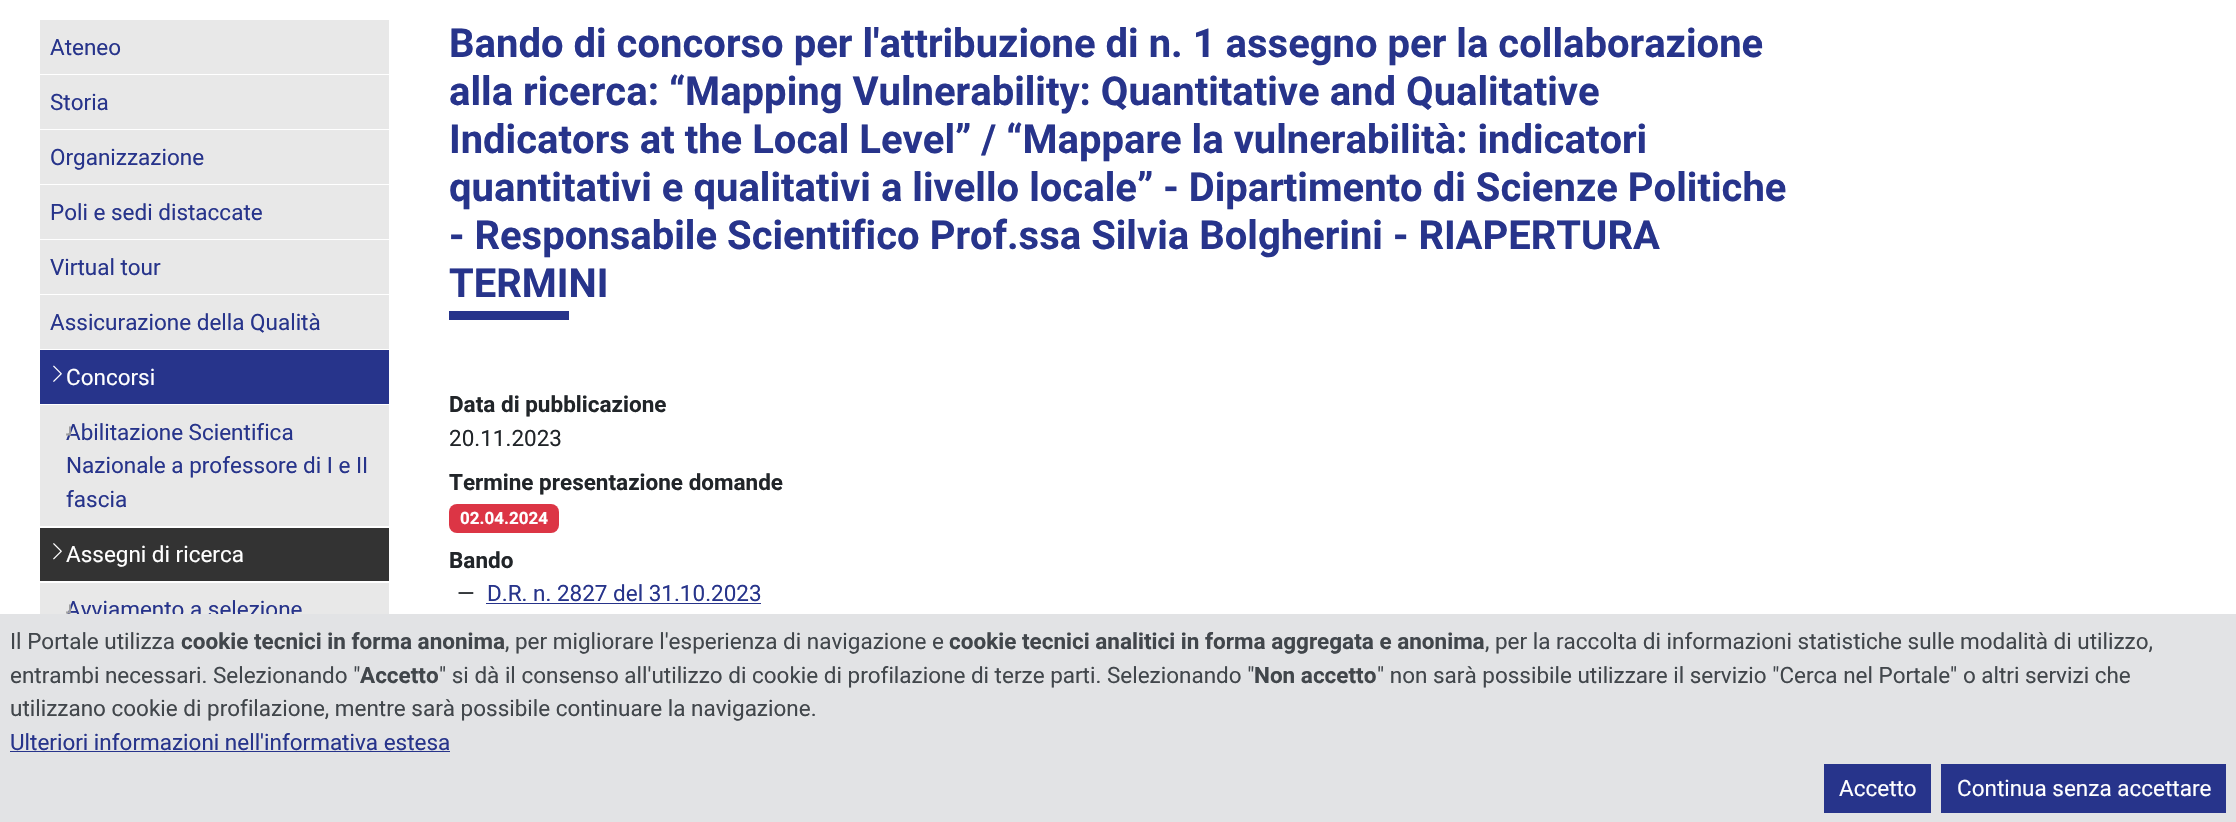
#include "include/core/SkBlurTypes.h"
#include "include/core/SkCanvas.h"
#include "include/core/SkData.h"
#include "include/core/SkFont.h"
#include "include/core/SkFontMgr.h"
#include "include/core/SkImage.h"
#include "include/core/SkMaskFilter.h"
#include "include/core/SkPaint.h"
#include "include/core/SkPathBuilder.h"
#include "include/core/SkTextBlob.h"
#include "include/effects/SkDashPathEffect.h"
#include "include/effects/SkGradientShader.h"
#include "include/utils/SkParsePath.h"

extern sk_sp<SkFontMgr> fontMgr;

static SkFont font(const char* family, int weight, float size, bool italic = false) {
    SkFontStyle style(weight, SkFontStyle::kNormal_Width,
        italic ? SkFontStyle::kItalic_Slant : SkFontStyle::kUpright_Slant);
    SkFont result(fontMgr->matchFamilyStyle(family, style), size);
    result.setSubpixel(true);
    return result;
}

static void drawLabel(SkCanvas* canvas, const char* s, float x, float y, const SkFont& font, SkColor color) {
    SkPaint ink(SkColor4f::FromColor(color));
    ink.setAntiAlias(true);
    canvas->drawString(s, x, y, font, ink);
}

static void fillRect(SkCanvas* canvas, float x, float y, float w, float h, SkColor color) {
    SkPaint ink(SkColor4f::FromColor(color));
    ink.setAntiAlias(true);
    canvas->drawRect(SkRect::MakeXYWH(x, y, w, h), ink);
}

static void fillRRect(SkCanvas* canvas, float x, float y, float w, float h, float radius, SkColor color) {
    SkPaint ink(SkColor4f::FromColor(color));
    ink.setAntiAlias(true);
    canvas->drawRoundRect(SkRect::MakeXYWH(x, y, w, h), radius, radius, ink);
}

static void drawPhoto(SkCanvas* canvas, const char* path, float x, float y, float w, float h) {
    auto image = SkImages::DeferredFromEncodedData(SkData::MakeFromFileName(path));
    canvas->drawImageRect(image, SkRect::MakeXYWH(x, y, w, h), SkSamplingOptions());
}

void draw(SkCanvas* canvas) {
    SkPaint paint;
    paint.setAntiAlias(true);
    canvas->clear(0xFFFFFFFF);
    fillRect(canvas, 40, 20, 349, 54, 0xFFE8E8E8);
    SkFont font1 = font("Roboto", 400, 22.5f);
    drawLabel(canvas, "Ateneo", 50, 55, font1, 0xFF27348B);
    fillRect(canvas, 40, 75, 349, 54, 0xFFE8E8E8);
    drawLabel(canvas, "Storia", 50, 110, font1, 0xFF27348B);
    fillRect(canvas, 40, 130, 349, 54, 0xFFE8E8E8);
    drawLabel(canvas, "Organizzazione", 50, 165, font1, 0xFF27348B);
    fillRect(canvas, 40, 185, 349, 54, 0xFFE8E8E8);
    drawLabel(canvas, "Poli e sedi distaccate", 50, 220, font1, 0xFF27348B);
    fillRect(canvas, 40, 240, 349, 54, 0xFFE8E8E8);
    drawLabel(canvas, "Virtual tour", 50, 275, font1, 0xFF27348B);
    fillRect(canvas, 40, 295, 349, 54, 0xFFE8E8E8);
    drawLabel(canvas, "Assicurazione della Qualità", 50, 330, font1, 0xFF27348B);
    fillRect(canvas, 40, 350, 349, 54, 0xFF27348B);
    drawPhoto(canvas, "assets/img1.png", 53, 365, 9, 17);
    drawLabel(canvas, "Concorsi", 66, 385, font1, 0xFFFFFFFF);
    fillRect(canvas, 40, 405, 349, 121, 0xFFE8E8E8);
    drawLabel(canvas, "Abilitazione Scientifica", 66, 440, font1, 0xFF27348B);
    canvas->save();
    canvas->rotate(90, 62, 425);
    drawLabel(canvas, "¬", 62, 425, font1, 0xFF9F9F9F);
    canvas->restore();
    drawLabel(canvas, "Nazionale a professore di I e II", 66, 473, font1, 0xFF27348B);
    drawLabel(canvas, "fascia", 66, 507, font1, 0xFF27348B);
    fillRect(canvas, 40, 528, 349, 53, 0xFF333333);
    drawPhoto(canvas, "assets/img2.png", 53, 543, 9, 17);
    drawLabel(canvas, "Assegni di ricerca", 66, 562, font1, 0xFFFFFFFF);
    fillRect(canvas, 40, 583, 349, 31, 0xFFE8E8E8);
    drawLabel(canvas, "Avviamento a selezione", 66, 617, font1, 0xFF27348B);
    canvas->save();
    canvas->rotate(90, 62, 603);
    drawLabel(canvas, "¬", 62, 603, font1, 0xFF9F9F9F);
    canvas->restore();
    SkFont font2 = font("Roboto", 700, 40);
    drawLabel(canvas, "Bando di concorso per l'attribuzione di n. 1 assegno per la collaborazione", 449, 57, font2, 0xFF27348B);
    drawLabel(canvas, "alla ricerca: “Mapping Vulnerability: Quantitative and Qualitative", 449, 105, font2, 0xFF27348B);
    drawLabel(canvas, "Indicators at the Local Level” / “Mappare la vulnerabilità: indicatori", 449, 153, font2, 0xFF27348B);
    drawLabel(canvas, "quantitativi e qualitativi a livello locale” - Dipartimento di Scienze Politiche", 449, 201, font2, 0xFF27348B);
    drawLabel(canvas, "- Responsabile Scientifico Prof.ssa Silvia Bolgherini - RIAPERTURA", 449, 249, font2, 0xFF27348B);
    drawLabel(canvas, "TERMINI", 449, 297, font2, 0xFF27348B);
    fillRect(canvas, 449, 311, 120, 9, 0xFF27348B);
    SkFont font3 = font("Roboto", 700, 22.5f);
    drawLabel(canvas, "Data di pubblicazione", 449, 412, font3, 0xFF212529);
    drawLabel(canvas, "20.11.2023", 449, 446, font1, 0xFF212529);
    drawLabel(canvas, "Termine presentazione domande", 449, 490, font3, 0xFF212529);
    fillRRect(canvas, 449, 504, 110, 29, 8, 0xFFDC3545);
    SkFont font4 = font("Roboto", 700, 17);
    drawLabel(canvas, "02.04.2024", 460, 524, font4, 0xFFFFFFFF);
    drawLabel(canvas, "Bando", 449, 568, font3, 0xFF212529);
    drawLabel(canvas, "—", 457, 601, font1, 0xFF212529);
    drawLabel(canvas, "D.R. n. 2827 del 31.10.2023", 487, 601, font1, 0xFF27348B);
    fillRect(canvas, 486, 603, 275, 1, 0xFF27348B);
    fillRect(canvas, 0, 614, 2236, 208, 0xFFE2E3E5);
    drawLabel(canvas, "Il Portale utilizza", 10, 649, font1, 0xFF41464B);
    drawLabel(canvas, "cookie tecnici in forma anonima", 181, 649, font3, 0xFF41464B);
    drawLabel(canvas, ", per migliorare l'esperienza di navigazione e", 505, 649, font1, 0xFF41464B);
    drawLabel(canvas, "cookie tecnici analitici in forma aggregata e anonima", 949, 649, font3, 0xFF41464B);
    drawLabel(canvas, ", per la raccolta di informazioni statistiche sulle modalità di utilizzo,", 1485, 649, font1, 0xFF41464B);
    drawLabel(canvas, "entrambi necessari. Selezionando \"", 10, 683, font1, 0xFF41464B);
    drawLabel(canvas, "Accetto", 360, 683, font3, 0xFF41464B);
    drawLabel(canvas, "\" si dà il consenso all'utilizzo di cookie di profilazione di terze parti. Selezionando \"", 439, 683, font1, 0xFF41464B);
    drawLabel(canvas, "Non accetto", 1254, 683, font3, 0xFF41464B);
    drawLabel(canvas, "\" non sarà possibile utilizzare il servizio \"Cerca nel Portale\" o altri servizi che", 1377, 683, font1, 0xFF41464B);
    drawLabel(canvas, "utilizzano cookie di profilazione, mentre sarà possibile continuare la navigazione.", 10, 716, font1, 0xFF41464B);
    drawLabel(canvas, "Ulteriori informazioni nell'informativa estesa", 10, 750, font1, 0xFF27348B);
    fillRect(canvas, 10, 751, 440, 1, 0xFF27348B);
    fillRect(canvas, 1824, 764, 107, 49, 0xFF27348B);
    drawLabel(canvas, "Accetto", 1839, 796, font1, 0xFFFFFFFF);
    fillRect(canvas, 1941, 764, 285, 49, 0xFF27348B);
    drawLabel(canvas, "Continua senza accettare", 1957, 796, font1, 0xFFFFFFFF);
}
